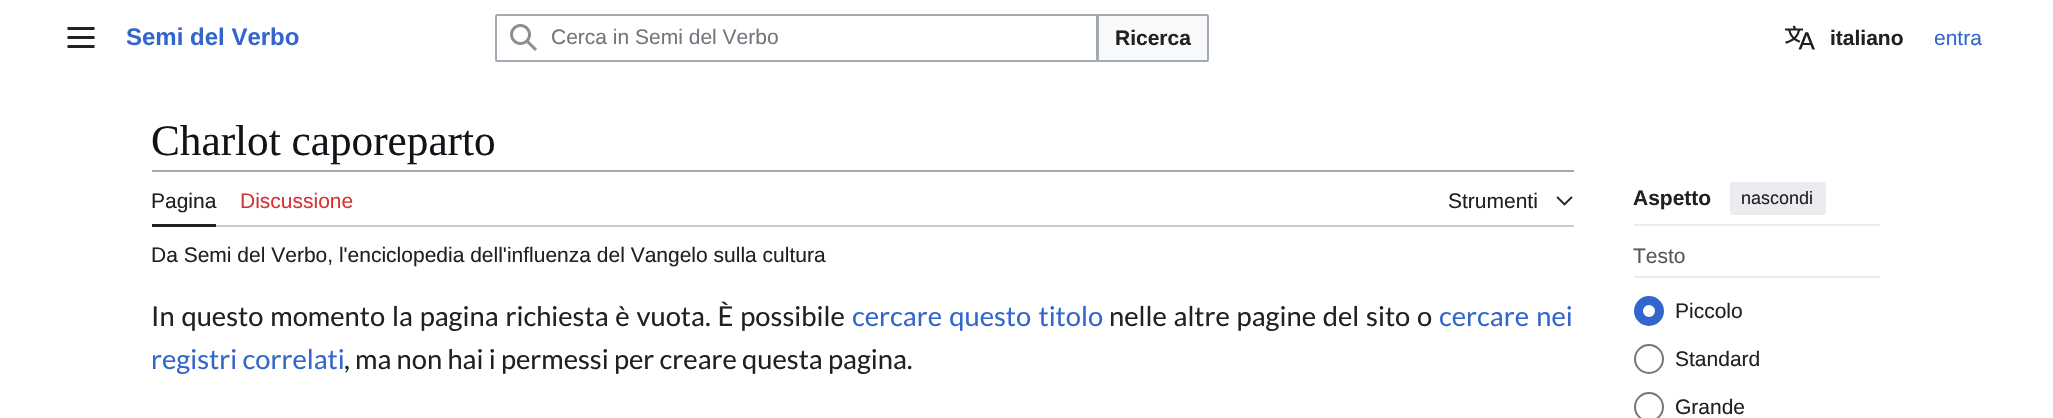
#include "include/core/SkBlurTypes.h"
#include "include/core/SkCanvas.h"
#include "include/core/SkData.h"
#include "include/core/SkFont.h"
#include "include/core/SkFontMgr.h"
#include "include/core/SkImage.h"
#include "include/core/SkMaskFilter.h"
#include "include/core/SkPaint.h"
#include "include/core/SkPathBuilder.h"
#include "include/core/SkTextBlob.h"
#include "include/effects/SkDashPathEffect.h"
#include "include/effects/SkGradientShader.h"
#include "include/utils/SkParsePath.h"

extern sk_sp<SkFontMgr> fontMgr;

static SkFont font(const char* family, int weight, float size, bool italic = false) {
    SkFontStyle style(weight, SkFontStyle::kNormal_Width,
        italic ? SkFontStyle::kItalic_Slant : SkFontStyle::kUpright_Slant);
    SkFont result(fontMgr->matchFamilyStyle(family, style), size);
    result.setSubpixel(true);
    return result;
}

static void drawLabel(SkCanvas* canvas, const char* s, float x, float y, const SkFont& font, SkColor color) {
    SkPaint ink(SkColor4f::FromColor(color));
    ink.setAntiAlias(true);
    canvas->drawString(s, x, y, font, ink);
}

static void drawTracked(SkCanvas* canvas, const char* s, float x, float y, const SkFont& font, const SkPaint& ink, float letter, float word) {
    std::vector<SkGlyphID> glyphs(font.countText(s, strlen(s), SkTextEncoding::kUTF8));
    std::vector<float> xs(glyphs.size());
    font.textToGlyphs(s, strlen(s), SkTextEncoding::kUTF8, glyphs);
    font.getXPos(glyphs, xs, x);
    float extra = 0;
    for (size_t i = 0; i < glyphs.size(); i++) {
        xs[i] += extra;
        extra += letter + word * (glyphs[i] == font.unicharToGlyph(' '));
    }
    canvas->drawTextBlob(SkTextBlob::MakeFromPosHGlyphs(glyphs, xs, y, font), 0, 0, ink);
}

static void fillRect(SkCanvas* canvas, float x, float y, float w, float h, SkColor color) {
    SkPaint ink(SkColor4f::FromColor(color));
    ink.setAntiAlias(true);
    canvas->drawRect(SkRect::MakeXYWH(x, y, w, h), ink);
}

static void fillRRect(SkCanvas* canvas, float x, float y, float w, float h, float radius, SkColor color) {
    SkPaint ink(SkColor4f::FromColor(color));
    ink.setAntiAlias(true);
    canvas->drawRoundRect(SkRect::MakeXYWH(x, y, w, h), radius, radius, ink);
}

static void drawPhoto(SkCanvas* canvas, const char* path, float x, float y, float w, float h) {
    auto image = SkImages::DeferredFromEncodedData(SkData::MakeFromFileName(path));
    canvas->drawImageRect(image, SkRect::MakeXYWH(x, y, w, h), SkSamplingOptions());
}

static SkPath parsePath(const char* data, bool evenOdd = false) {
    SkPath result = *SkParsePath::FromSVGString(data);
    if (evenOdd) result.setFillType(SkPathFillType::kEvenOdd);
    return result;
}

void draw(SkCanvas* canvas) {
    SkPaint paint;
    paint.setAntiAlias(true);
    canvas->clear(0xFFFFFFFF);
    drawPhoto(canvas, "assets/img1.png", 67, 27, 28, 21);
    SkFont font1 = font("Liberation Sans", 700, 24);
    drawLabel(canvas, "Semi del Verbo", 126, 45, font1, 0xFF3366CC);
    paint.setStroke(true);
    paint.setStrokeWidth(2);
    paint.setColor(0xFFA2A9B1);
    canvas->drawRoundRect(SkRect::MakeXYWH(496, 15, 712, 46), 2, 2, paint);
    paint.setStroke(false);
    paint.setColor(0xFFF8F9FA);
    canvas->drawPath(parsePath("M1098 15H1206C1207 15 1208 16 1208 17V59C1208 60 1207 61 1206 61H1098Z"), paint);
    paint.setStroke(true);
    paint.setColor(0xFFA2A9B1);
    canvas->drawPath(parsePath("M1098 15H1206C1207 15 1208 16 1208 17V59C1208 60 1207 61 1206 61H1098Z"), paint);
    paint.setStroke(false);
    paint.setColor(0xFFFFFFFF);
    canvas->drawPath(parsePath("M498 14H1098V62H498C496.5 62 495 60.5 495 59V17C495 15.5 496.5 14 498 14Z"), paint);
    paint.setColor(0xFFA2A9B1);
    canvas->drawPath(parsePath("M498 14C496 14 495 15 495 17V59C495 61 496 62 498 62H1098V14ZM497 16V60H1096V16Z", true), paint);
    drawPhoto(canvas, "assets/img2.png", 510, 24, 27, 27);
    SkFont font2 = font("Liberation Sans", 400, 21);
    drawLabel(canvas, "Cerca in Semi del Verbo", 551, 44, font2, 0xFF72777D);
    SkFont font3 = font("Liberation Sans", 700, 21);
    drawLabel(canvas, "Ricerca", 1115, 45, font3, 0xFF202122);
    drawPhoto(canvas, "assets/img3.png", 1785, 25, 30, 25);
    drawLabel(canvas, "italiano", 1830, 45, font3, 0xFF202122);
    drawLabel(canvas, "entra", 1934, 45, font2, 0xFF3366CC);
    SkFont font4 = font("Liberation Serif", 400, 43.25f);
    drawLabel(canvas, "Charlot caporeparto", 151, 155, font4, 0xFF101418);
    fillRect(canvas, 152, 170, 1422, 2, 0xFFA2A9B1);
    paint.setColor(0xFFC8CCD1);
    canvas->drawPath(parsePath("M152 225V227H1574V173V225Z"), paint);
    fillRect(canvas, 152, 224, 64, 3, 0xFF202122);
    drawLabel(canvas, "Pagina", 151, 208, font2, 0xFF202122);
    drawLabel(canvas, "Discussione", 240, 208, font2, 0xFFD73333);
    drawLabel(canvas, "Strumenti", 1448, 208, font2, 0xFF202122);
    drawPhoto(canvas, "assets/img4.png", 1556, 196, 17, 10);
    fillRect(canvas, 1634, 224, 246, 2, 0xFFEAECF0);
    drawLabel(canvas, "Aspetto", 1633, 205, font3, 0xFF202122);
    fillRRect(canvas, 1730, 182, 96, 33, 3, 0xFFEAECF0);
    SkFont font5 = font("Liberation Sans", 400, 18);
    drawLabel(canvas, "nascondi", 1741, 204, font5, 0xFF202122);
    fillRect(canvas, 1634, 276, 246, 2, 0xFFEAECF0);
    drawLabel(canvas, "Testo", 1633, 263, font2, 0xFF54595D);
    paint.setStroke(true);
    paint.setStrokeWidth(9);
    paint.setColor(0xFF3366CC);
    canvas->drawCircle(1649, 311, 10.5f, paint);
    drawLabel(canvas, "Piccolo", 1675, 318, font2, 0xFF202122);
    paint.setStrokeWidth(2);
    paint.setColor(0xFF72777D);
    canvas->drawCircle(1649, 359, 14, paint);
    drawLabel(canvas, "Standard", 1675, 366, font2, 0xFF202122);
    canvas->drawCircle(1649, 407, 14, paint);
    drawLabel(canvas, "Grande", 1675, 414, font2, 0xFF202122);
    drawLabel(canvas, "Da Semi del Verbo, l'enciclopedia dell'influenza del Vangelo sulla cultura", 151, 262, font2, 0xFF202122);
    SkFont font6 = font("Lato", 400, 27.3f);
    paint.setStroke(false);
    paint.setColor(0xFF202122);
    drawTracked(canvas, "In questo momento la pagina richiesta è vuota. È possibile", 151, 326, font6, paint, 0, 1.6f);
    paint.setColor(0xFF3366CC);
    drawTracked(canvas, "cercare questo titolo", 852, 326, font6, paint, 0, 2);
    paint.setColor(0xFF202122);
    drawTracked(canvas, "nelle altre pagine del sito o", 1109, 326, font6, paint, 0, 1.5f);
    paint.setColor(0xFF3366CC);
    drawTracked(canvas, "cercare nei", 1439, 326, font6, paint, 0, 2);
    drawLabel(canvas, "registri correlati", 151, 369, font6, 0xFF3366CC);
    drawLabel(canvas, ", ma non hai i permessi per creare questa pagina.", 344, 369, font6, 0xFF202122);
}
